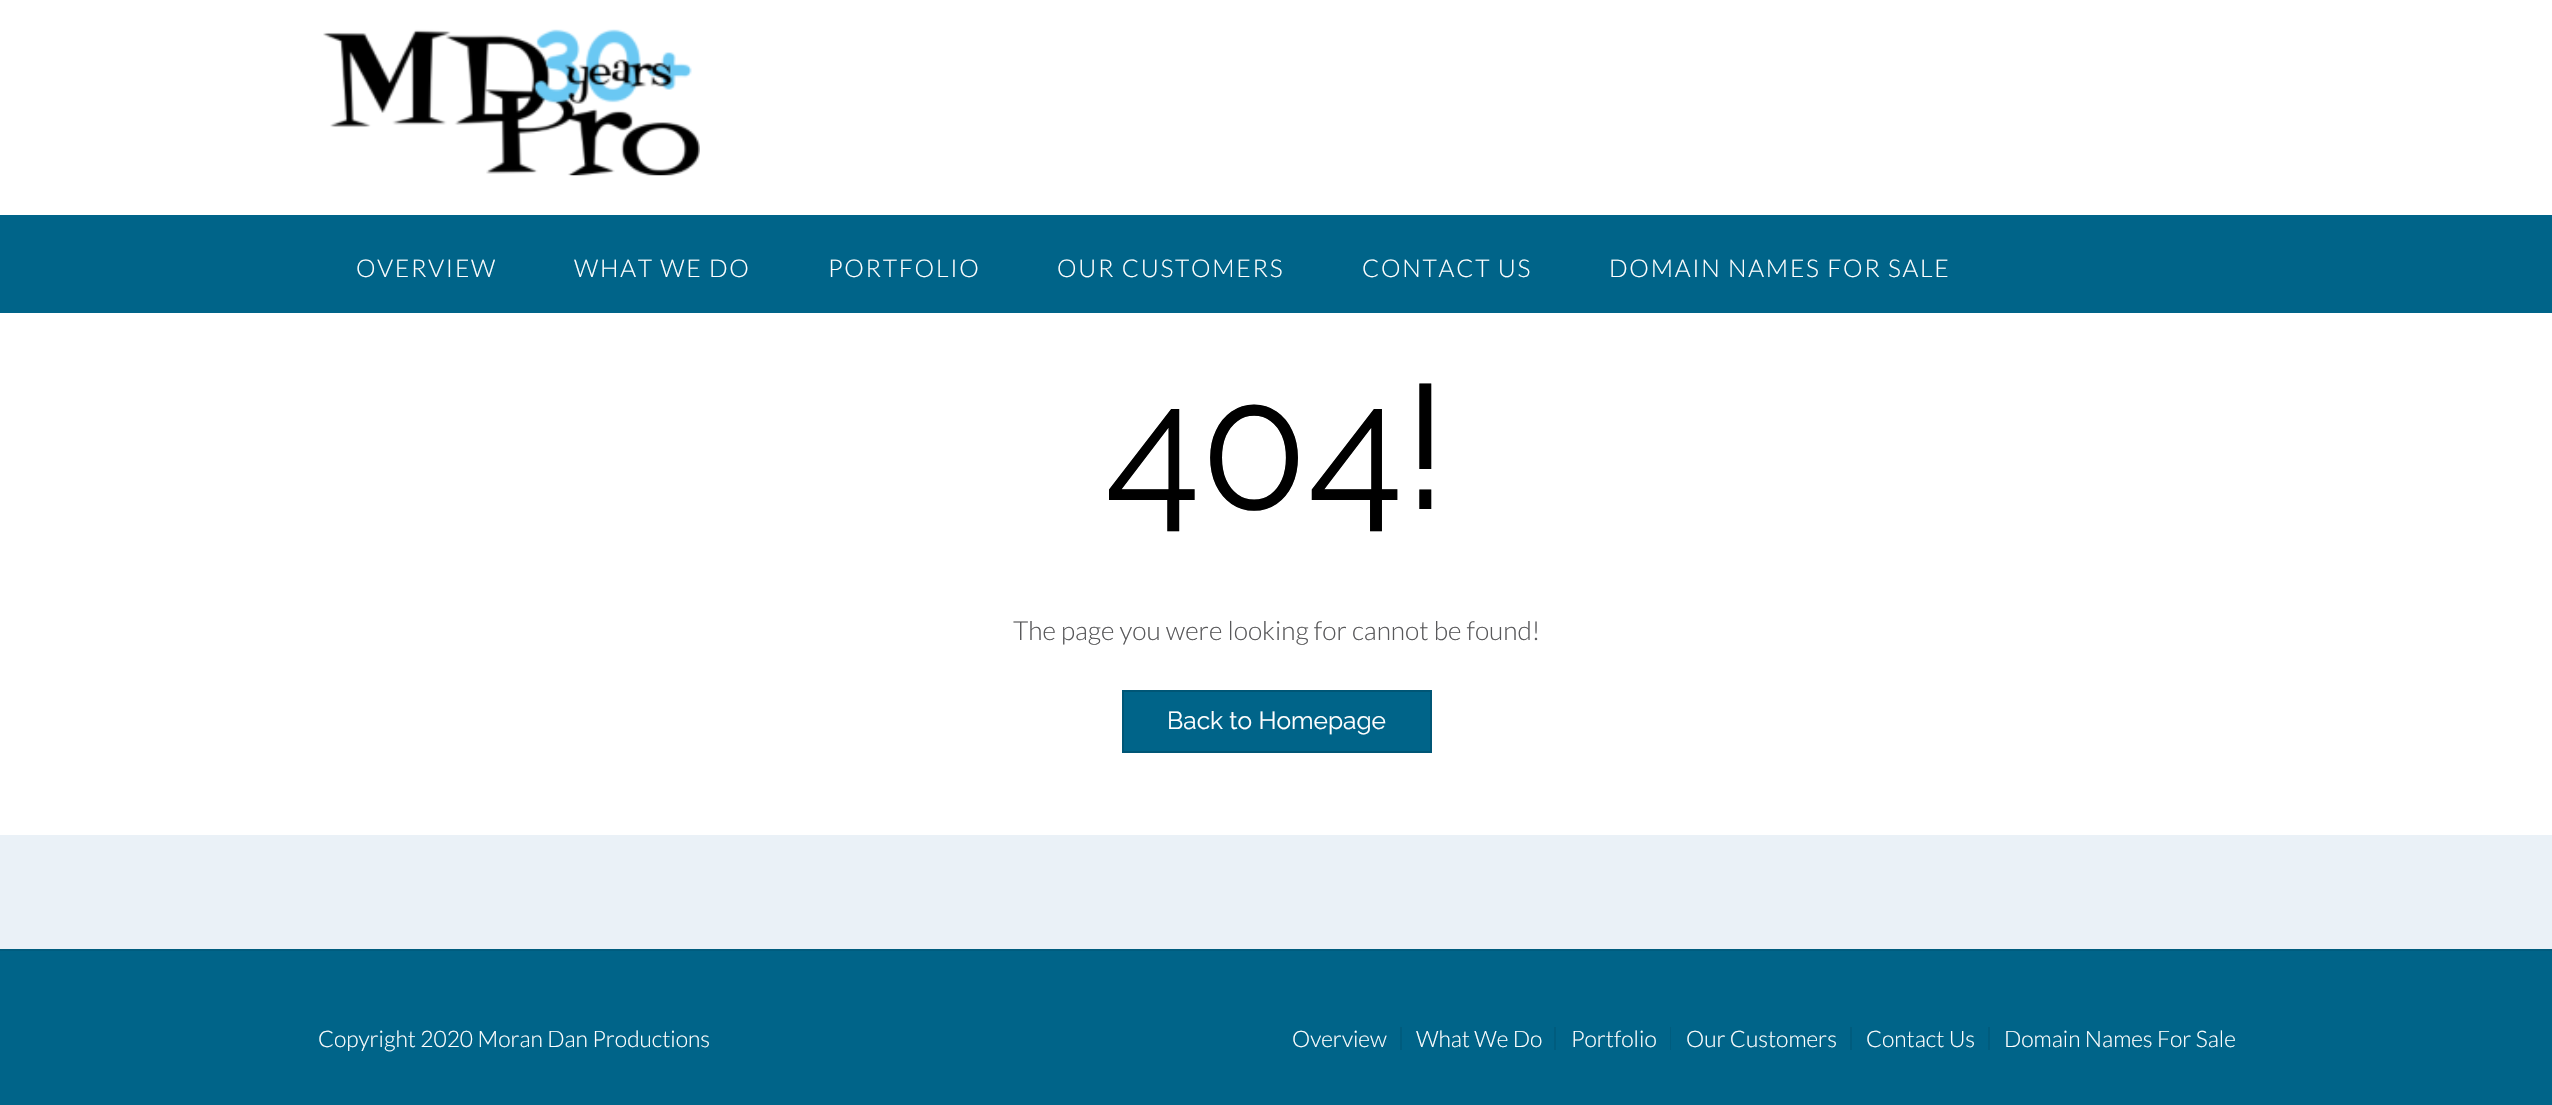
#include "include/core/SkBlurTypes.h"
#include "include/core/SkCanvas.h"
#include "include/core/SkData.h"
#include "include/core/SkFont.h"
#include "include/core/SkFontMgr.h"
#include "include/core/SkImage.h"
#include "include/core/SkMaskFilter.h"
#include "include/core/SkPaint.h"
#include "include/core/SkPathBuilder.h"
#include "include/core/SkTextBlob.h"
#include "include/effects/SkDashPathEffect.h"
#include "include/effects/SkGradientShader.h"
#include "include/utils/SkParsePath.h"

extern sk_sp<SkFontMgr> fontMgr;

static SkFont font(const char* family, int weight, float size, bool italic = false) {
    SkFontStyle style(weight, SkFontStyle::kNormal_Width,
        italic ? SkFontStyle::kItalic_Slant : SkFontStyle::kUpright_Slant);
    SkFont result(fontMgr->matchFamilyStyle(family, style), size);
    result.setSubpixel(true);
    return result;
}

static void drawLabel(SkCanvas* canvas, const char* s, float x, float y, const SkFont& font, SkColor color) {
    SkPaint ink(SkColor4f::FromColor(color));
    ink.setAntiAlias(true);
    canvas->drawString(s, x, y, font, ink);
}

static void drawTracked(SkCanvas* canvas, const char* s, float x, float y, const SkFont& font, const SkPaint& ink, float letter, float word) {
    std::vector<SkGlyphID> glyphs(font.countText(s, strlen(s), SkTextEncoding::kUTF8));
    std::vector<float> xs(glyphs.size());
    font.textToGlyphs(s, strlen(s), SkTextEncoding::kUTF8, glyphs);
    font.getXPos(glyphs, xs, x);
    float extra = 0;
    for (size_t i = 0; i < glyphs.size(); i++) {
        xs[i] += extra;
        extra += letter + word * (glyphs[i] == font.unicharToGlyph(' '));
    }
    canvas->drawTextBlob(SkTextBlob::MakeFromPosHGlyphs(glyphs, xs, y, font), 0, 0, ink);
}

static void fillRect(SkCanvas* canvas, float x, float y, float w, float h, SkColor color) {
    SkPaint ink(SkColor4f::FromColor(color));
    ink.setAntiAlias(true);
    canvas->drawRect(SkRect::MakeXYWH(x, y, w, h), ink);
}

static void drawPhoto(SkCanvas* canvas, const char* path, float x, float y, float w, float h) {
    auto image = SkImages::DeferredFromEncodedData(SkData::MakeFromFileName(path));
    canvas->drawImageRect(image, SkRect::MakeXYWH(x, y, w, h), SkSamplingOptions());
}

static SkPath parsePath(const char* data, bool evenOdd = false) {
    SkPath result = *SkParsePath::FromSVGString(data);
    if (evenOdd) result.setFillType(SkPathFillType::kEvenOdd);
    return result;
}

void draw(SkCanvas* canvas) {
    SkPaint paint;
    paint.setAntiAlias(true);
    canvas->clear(0xFFFFFFFF);
    drawPhoto(canvas, "assets/img1.png", 323, 29, 377, 147);
    fillRect(canvas, 0, 215, 2552, 98, 0xFF006489);
    SkFont font1 = font("Lato", 300, 24.5f);
    paint.setColor(0xFFFFFFFF);
    drawTracked(canvas, "OVERVIEW", 356, 277, font1, paint, 1.75f, 0);
    drawTracked(canvas, "WHAT WE DO", 574, 277, font1, paint, 1.75f, 0);
    drawTracked(canvas, "PORTFOLIO", 828, 277, font1, paint, 1.75f, 0);
    drawTracked(canvas, "OUR CUSTOMERS", 1057, 277, font1, paint, 1.75f, 0);
    drawTracked(canvas, "CONTACT US", 1362, 277, font1, paint, 1.75f, 0);
    drawTracked(canvas, "DOMAIN NAMES FOR SALE", 1609, 277, font1, paint, 1.75f, 0);
    SkFont font2 = font("Raleway", 400, 175);
    drawLabel(canvas, "404!", 1105, 509, font2, 0xFF000000);
    SkFont font3 = font("Lato", 300, 26.25f);
    drawLabel(canvas, "The page you were looking for cannot be found!", 1013, 640, font3, 0xFF58585A);
    paint.setColor(0xFF006489);
    canvas->drawRect(SkRect::MakeXYWH(1123, 691, 308, 61), paint);
    paint.setStroke(true);
    paint.setStrokeWidth(2);
    paint.setColor(0xFF005676);
    canvas->drawRect(SkRect::MakeXYWH(1123, 691, 308, 61), paint);
    SkFont font4 = font("Raleway", 400, 24.5f);
    drawLabel(canvas, "Back to Homepage", 1167, 729, font4, 0xFFFFFFFF);
    fillRect(canvas, 0, 835, 2552, 114, 0xFFEAF1F7);
    fillRect(canvas, 0, 951, 2552, 154, 0xFF006489);
    fillRect(canvas, 0, 949, 2552, 2, 0xFF005C7E);
    SkFont font5 = font("Lato", 300, 22.75f);
    drawLabel(canvas, "Copyright 2020 Moran Dan Productions", 318, 1047, font5, 0xFFFFFFFF);
    paint.setStroke(false);
    paint.setColor(0xFF005C7E);
    canvas->drawPath(parsePath("M1283 1027H1400V1050H1402V1027Z"), paint);
    drawLabel(canvas, "Overview", 1292, 1047, font5, 0xFFFFFFFF);
    canvas->drawPath(parsePath("M1405 1027H1554V1050H1556V1027Z"), paint);
    drawLabel(canvas, "What We Do", 1416, 1047, font5, 0xFFFFFFFF);
    canvas->drawPath(parsePath("M1561 1027H1670V1050H1671V1027Z"), paint);
    drawLabel(canvas, "Portfolio", 1571, 1047, font5, 0xFFFFFFFF);
    canvas->drawPath(parsePath("M1675 1027H1850V1050H1852V1027Z"), paint);
    drawLabel(canvas, "Our Customers", 1686, 1047, font5, 0xFFFFFFFF);
    canvas->drawPath(parsePath("M1855 1027H1988V1050H1990V1027Z"), paint);
    drawLabel(canvas, "Contact Us", 1866, 1047, font5, 0xFFFFFFFF);
    drawLabel(canvas, "Domain Names For Sale", 2004, 1047, font5, 0xFFFFFFFF);
}
